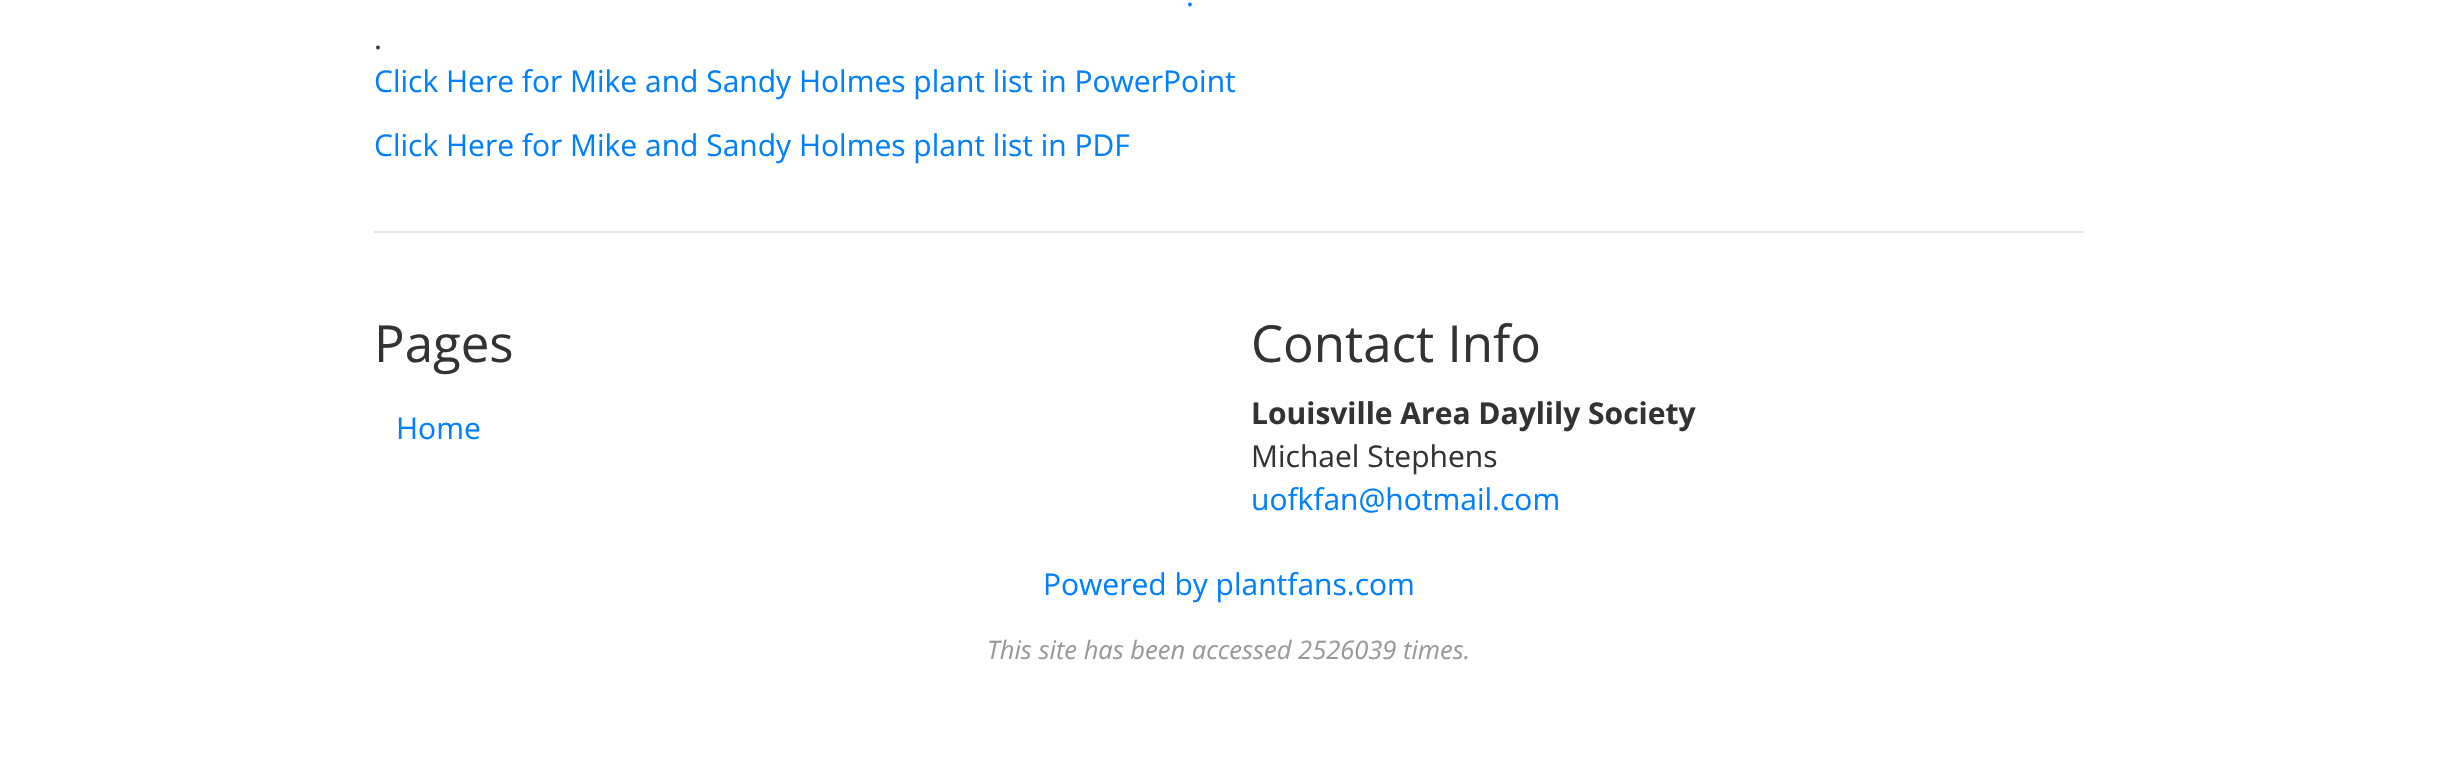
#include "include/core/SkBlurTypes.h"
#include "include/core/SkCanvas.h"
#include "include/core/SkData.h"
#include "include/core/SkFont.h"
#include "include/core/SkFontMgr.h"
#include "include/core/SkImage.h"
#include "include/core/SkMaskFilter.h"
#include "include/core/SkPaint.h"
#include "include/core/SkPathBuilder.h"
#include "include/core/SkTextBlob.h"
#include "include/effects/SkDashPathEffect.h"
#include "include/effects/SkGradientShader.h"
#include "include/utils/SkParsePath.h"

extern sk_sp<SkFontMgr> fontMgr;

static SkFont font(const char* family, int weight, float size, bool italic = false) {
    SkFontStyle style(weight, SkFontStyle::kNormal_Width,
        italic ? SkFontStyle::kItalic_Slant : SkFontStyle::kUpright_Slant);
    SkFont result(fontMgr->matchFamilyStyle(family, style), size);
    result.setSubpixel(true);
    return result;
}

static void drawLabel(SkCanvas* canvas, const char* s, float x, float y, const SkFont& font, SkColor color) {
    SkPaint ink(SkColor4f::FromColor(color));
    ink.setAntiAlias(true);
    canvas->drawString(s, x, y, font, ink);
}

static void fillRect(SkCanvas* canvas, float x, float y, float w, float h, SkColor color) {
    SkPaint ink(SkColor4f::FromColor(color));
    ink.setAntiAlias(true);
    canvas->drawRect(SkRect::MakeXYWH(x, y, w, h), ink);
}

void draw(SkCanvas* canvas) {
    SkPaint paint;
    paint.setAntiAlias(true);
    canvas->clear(0xFFFFFFFF);
    SkFont font1 = font("Open Sans", 400, 30);
    drawLabel(canvas, ".", 1186, 6, font1, 0xFF007FFF);
    drawLabel(canvas, ".", 374, 49, font1, 0xFF333333);
    drawLabel(canvas, "Click Here for Mike and Sandy Holmes plant list in PowerPoint", 374, 92, font1, 0xFF007FFF);
    drawLabel(canvas, "Click Here for Mike and Sandy Holmes plant list in PDF", 374, 156, font1, 0xFF007FFF);
    fillRect(canvas, 374, 231, 1710, 2, 0xFFE6E6E6);
    SkFont font2 = font("Open Sans", 400, 51);
    drawLabel(canvas, "Pages", 374, 362, font2, 0xFF333333);
    drawLabel(canvas, "Home", 396, 439, font1, 0xFF007FFF);
    drawLabel(canvas, "Contact Info", 1251, 362, font2, 0xFF333333);
    SkFont font3 = font("Open Sans", 700, 30);
    drawLabel(canvas, "Louisville Area Daylily Society", 1251, 424, font3, 0xFF333333);
    drawLabel(canvas, "Michael Stephens", 1251, 467, font1, 0xFF333333);
    drawLabel(canvas, "uofkfan@hotmail.com", 1251, 510, font1, 0xFF007FFF);
    drawLabel(canvas, "Powered by plantfans.com", 1043, 595, font1, 0xFF007FFF);
    SkFont font4 = font("Open Sans", 400, 25.5f, true);
    drawLabel(canvas, "This site has been accessed 2526039 times.", 987, 659, font4, 0xFF999999);
}
